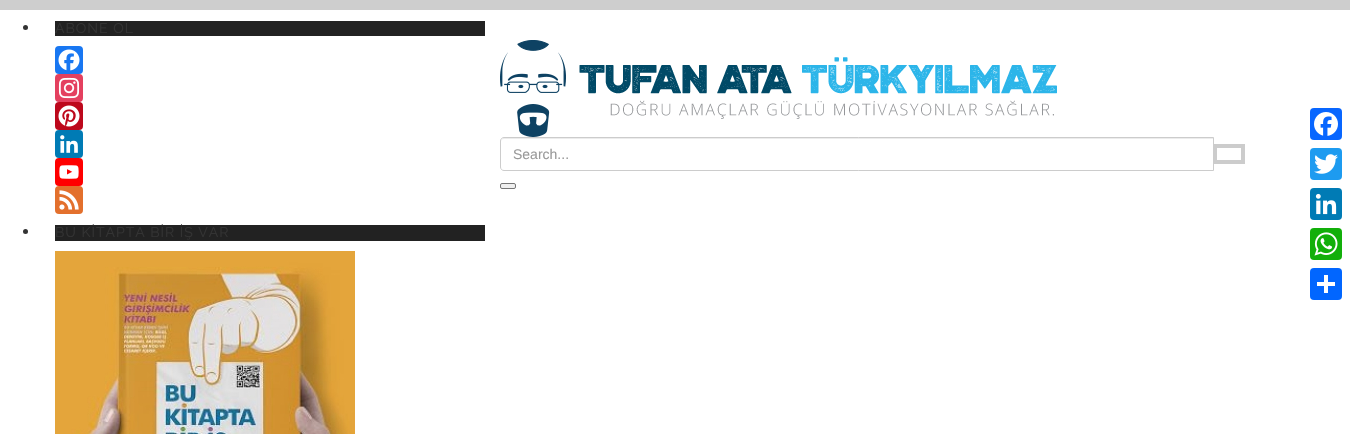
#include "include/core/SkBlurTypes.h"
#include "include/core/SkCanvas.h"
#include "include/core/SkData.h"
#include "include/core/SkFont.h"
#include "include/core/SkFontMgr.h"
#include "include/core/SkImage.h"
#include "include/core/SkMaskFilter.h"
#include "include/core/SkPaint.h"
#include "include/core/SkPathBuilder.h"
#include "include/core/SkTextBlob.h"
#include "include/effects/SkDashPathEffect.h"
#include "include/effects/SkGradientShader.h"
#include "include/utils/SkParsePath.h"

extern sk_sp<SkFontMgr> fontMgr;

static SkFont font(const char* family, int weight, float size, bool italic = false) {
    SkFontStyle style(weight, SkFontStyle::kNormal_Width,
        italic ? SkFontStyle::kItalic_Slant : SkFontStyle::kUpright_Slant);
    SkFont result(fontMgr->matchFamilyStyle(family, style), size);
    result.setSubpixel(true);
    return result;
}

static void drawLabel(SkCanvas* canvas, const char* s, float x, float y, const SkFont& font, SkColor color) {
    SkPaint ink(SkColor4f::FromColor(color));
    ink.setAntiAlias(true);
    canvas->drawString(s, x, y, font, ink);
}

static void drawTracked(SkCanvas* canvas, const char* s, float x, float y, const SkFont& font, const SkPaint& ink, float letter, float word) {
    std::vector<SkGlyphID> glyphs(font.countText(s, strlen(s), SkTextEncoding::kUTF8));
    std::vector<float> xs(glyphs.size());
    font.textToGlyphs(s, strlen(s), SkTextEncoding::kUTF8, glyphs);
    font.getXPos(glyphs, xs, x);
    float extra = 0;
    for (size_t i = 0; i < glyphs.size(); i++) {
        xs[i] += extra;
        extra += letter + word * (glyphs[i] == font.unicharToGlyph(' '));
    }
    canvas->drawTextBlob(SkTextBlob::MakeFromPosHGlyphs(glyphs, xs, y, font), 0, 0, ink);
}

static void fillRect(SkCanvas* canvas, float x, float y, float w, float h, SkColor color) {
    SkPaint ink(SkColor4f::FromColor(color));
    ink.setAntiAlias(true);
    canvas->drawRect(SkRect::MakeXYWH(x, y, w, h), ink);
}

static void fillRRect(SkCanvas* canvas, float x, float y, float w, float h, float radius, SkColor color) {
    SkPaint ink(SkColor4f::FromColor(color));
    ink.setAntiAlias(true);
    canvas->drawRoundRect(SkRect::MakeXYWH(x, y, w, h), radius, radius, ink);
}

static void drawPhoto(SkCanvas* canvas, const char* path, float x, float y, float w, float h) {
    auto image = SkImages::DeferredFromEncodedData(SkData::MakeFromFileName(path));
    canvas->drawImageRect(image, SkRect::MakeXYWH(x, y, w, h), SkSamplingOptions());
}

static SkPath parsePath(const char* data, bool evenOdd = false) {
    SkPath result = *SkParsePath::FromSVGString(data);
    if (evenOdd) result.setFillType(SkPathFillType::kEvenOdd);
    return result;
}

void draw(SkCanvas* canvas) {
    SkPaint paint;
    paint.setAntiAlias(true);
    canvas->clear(0xFFCECECE);
    fillRect(canvas, 0, 10, 1350, 424, 0xFFFFFFFF);
    paint.setColor(0xFF333333);
    canvas->drawCircle(25.5f, 27.5f, 2.5f, paint);
    fillRect(canvas, 55, 21, 430, 15, 0xFF222222);
    SkFont font1 = font("Raleway", 400, 14);
    drawTracked(canvas, "ABONE OL", 55, 33, font1, paint, 1, 0);
    fillRRect(canvas, 55, 46, 28, 28, 4, 0xFF1877F2);
    drawPhoto(canvas, "assets/img1.png", 58, 49, 22, 22);
    fillRRect(canvas, 55, 74, 28, 28, 4, 0xFFE4405F);
    drawPhoto(canvas, "assets/img2.png", 58, 77, 22, 22);
    fillRRect(canvas, 55, 102, 28, 28, 4, 0xFFBD081C);
    drawPhoto(canvas, "assets/img3.png", 58, 105, 22, 22);
    fillRRect(canvas, 55, 130, 28, 28, 4, 0xFF007BB5);
    drawPhoto(canvas, "assets/img4.png", 60, 135, 18, 18);
    fillRRect(canvas, 55, 158, 28, 28, 4, 0xFFFF0000);
    drawPhoto(canvas, "assets/img5.png", 59, 165, 20, 14);
    fillRRect(canvas, 55, 186, 28, 28, 4, 0xFFE3702D);
    drawPhoto(canvas, "assets/img6.png", 59, 190, 20, 20);
    canvas->drawCircle(25.5f, 231.5f, 2.5f, paint);
    fillRect(canvas, 55, 225, 430, 16, 0xFF222222);
    drawTracked(canvas, "BU KİTAPTA BİR İŞ VAR", 55, 237, font1, paint, 1, 0);
    drawPhoto(canvas, "assets/img7.png", 55, 251, 300, 183);
    drawPhoto(canvas, "assets/img8.png", 500, 40, 557, 97);
    paint.setColor(0xFFECECEC);
    canvas->drawPath(parsePath("M504 139H1213V138H504C502 138 501 140 501 142C501 140 502 139 504 139Z"), paint);
    paint.setStroke(true);
    paint.setStrokeWidth(1);
    paint.setColor(0xFFCCCCCC);
    canvas->drawPath(parsePath("M504 137.5H1213.5V170.5H504C502 170.5 500.5 169 500.5 167V141C500.5 139 502 137.5 504 137.5Z"), paint);
    SkFont font2 = font("Liberation Sans", 400, 14);
    drawLabel(canvas, "Search...", 513, 159, font2, 0xFF999999);
    paint.setStrokeWidth(4);
    canvas->drawRect(SkRect::MakeXYWH(1215, 146, 28, 16), paint);
    paint.setStroke(false);
    paint.setColor(0xFFEFEFEF);
    canvas->drawRoundRect(SkRect::MakeXYWH(500.5f, 183.5f, 15, 5), 1.5f, 1.5f, paint);
    paint.setStroke(true);
    paint.setStrokeWidth(1);
    paint.setColor(0xFF767676);
    canvas->drawRoundRect(SkRect::MakeXYWH(500.5f, 183.5f, 15, 5), 1.5f, 1.5f, paint);
    fillRRect(canvas, 1310, 108, 32, 32, 4, 0xFF0866FF);
    drawPhoto(canvas, "assets/img9.png", 1314, 112, 24, 24);
    fillRRect(canvas, 1310, 148, 32, 32, 4, 0xFF1D9BF0);
    drawPhoto(canvas, "assets/img10.png", 1314, 154, 24, 20);
    fillRRect(canvas, 1310, 188, 32, 32, 4, 0xFF007BB5);
    drawPhoto(canvas, "assets/img11.png", 1315, 193, 22, 22);
    fillRRect(canvas, 1310, 228, 32, 32, 4, 0xFF12AF0A);
    drawPhoto(canvas, "assets/img12.png", 1314, 232, 24, 24);
    fillRRect(canvas, 1310, 268, 32, 32, 4, 0xFF0166FF);
    fillRect(canvas, 1324, 275, 4, 18, 0xFFFFFFFF);
    fillRect(canvas, 1317, 282, 18, 4, 0xFFFFFFFF);
}
